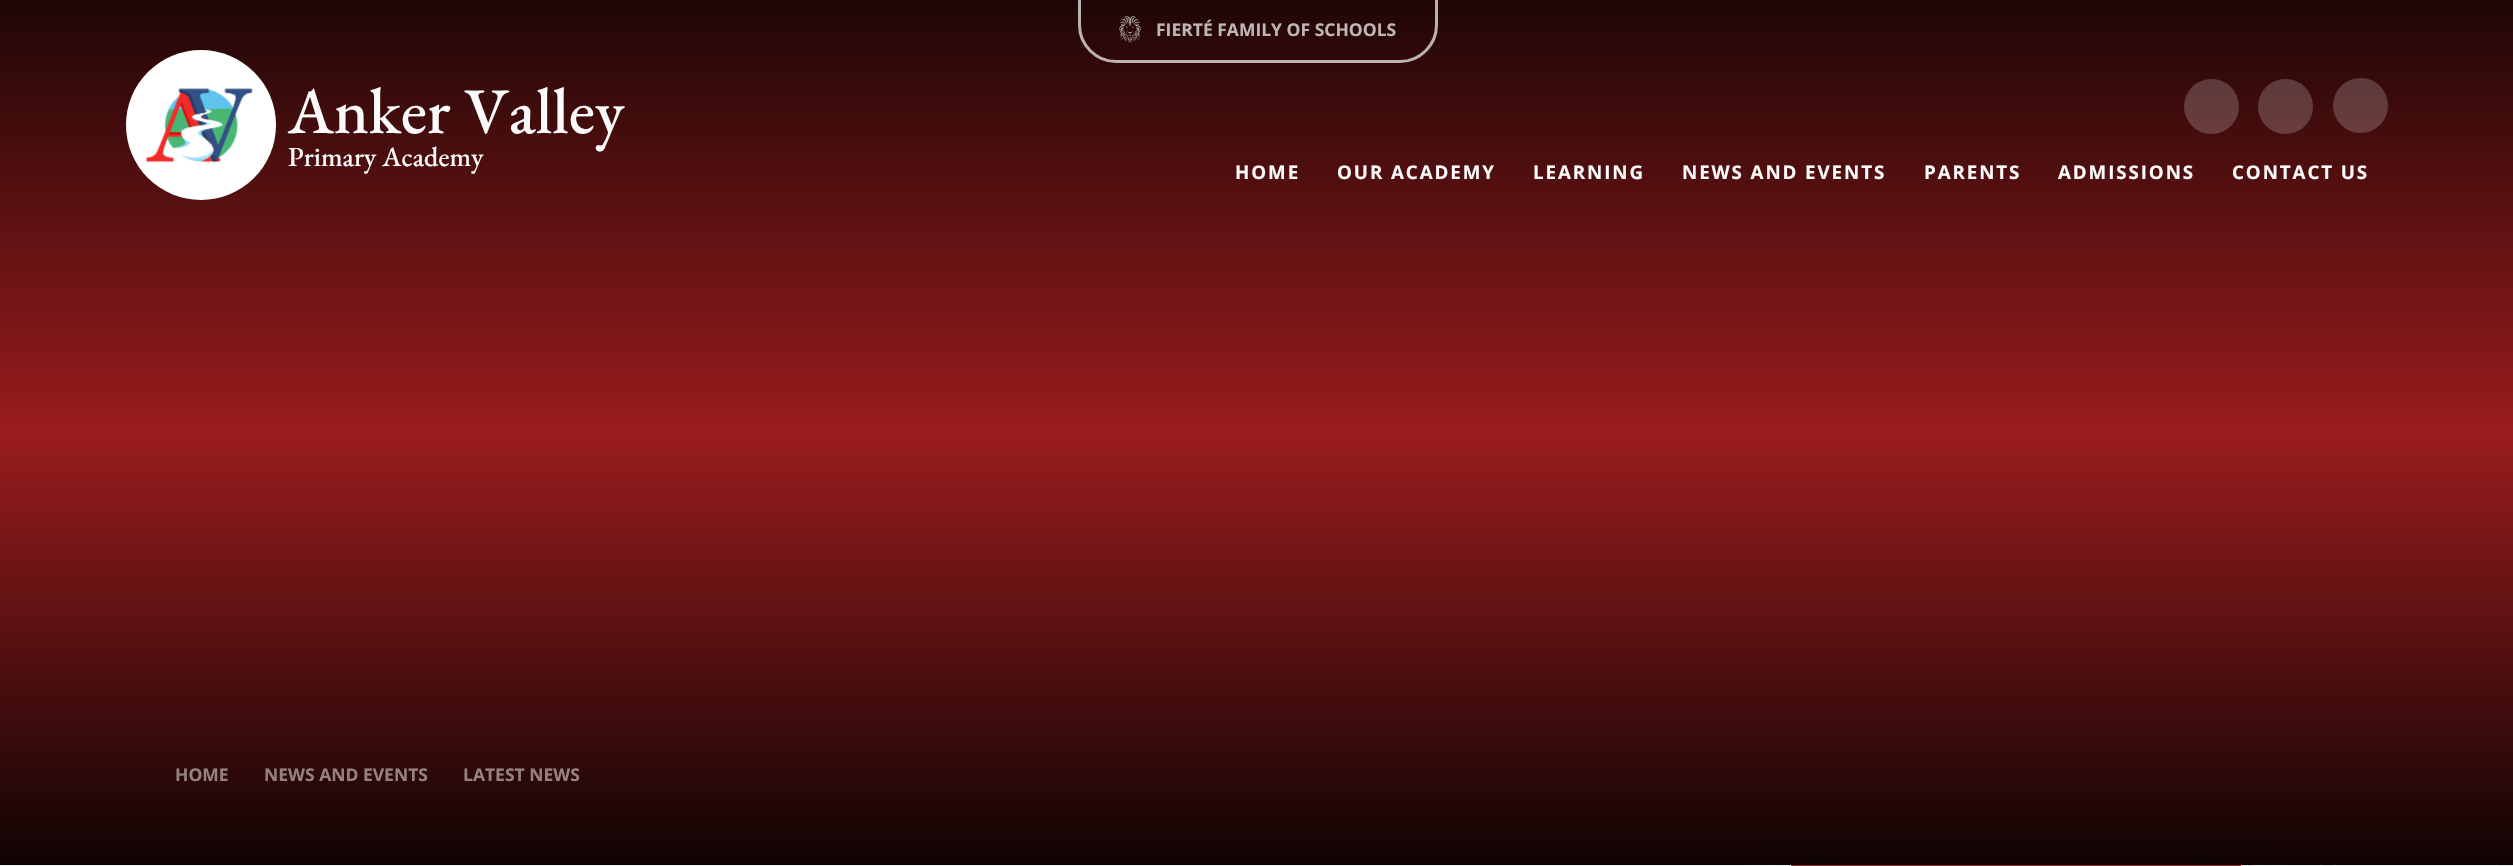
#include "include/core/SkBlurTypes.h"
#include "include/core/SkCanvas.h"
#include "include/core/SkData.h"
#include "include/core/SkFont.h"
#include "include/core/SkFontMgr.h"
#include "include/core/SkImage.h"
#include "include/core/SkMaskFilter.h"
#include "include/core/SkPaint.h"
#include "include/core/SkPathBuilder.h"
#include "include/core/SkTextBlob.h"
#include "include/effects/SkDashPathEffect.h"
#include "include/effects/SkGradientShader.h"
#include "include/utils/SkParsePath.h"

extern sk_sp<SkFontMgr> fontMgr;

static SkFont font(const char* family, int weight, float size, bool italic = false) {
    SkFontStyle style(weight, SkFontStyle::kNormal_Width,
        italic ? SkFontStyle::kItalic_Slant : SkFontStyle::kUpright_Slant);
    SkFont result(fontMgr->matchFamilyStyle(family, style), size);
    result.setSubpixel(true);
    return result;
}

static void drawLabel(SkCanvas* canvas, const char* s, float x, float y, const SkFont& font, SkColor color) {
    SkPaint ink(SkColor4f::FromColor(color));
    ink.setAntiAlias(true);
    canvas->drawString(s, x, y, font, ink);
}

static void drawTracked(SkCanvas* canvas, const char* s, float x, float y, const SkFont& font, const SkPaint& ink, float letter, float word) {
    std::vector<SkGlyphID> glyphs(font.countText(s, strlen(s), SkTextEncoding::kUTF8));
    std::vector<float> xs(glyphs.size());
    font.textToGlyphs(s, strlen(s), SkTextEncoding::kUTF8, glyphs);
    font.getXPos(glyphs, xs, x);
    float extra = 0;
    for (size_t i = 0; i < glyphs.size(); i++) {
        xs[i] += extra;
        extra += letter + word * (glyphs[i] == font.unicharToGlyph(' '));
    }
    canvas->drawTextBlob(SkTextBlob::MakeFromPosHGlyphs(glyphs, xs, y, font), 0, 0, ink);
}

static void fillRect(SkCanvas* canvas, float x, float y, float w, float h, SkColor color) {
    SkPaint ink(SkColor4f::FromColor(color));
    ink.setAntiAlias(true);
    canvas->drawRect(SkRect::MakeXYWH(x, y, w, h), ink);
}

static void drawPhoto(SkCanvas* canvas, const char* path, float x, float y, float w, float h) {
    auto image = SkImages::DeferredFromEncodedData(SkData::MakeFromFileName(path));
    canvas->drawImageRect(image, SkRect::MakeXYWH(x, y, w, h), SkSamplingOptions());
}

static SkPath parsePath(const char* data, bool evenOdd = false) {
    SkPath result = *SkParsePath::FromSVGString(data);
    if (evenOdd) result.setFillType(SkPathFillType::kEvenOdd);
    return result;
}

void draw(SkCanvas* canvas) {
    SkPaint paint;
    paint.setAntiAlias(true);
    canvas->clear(0xFF9A1C1D);
    {
        const SkColor colors[] = {0xFF1F0606, 0xFF9A1C1D};
        const float stops[] = {0, 1};
        const SkPoint ends[] = {{1257, 0}, {1257, 433}};
        paint.setShader(SkGradientShader::MakeLinear(ends, colors, stops, 2, SkTileMode::kClamp));
        paint.setAlpha(255);
    }
    canvas->drawRect(SkRect::MakeXYWH(0, 0, 2513, 424), paint);
    paint.setStroke(true);
    paint.setStrokeWidth(3);
    paint.setShader(nullptr);
    paint.setColor(0xB3FAFAFA);
    canvas->drawPath(parsePath("M1079.5-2.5H1436.5V25C1436.5 45 1420 61.5 1400 61.5H1116C1096 61.5 1079.5 45 1079.5 25Z"), paint);
    drawPhoto(canvas, "assets/img1.png", 1119, 16, 22, 27);
    SkFont font1 = font("Open Sans", 700, 17.5f);
    drawLabel(canvas, "FIERTÉ FAMILY OF SCHOOLS", 1156, 36, font1, 0xFFBEB5B5);
    paint.setStroke(false);
    paint.setColor(0xFFFFFFFF);
    canvas->drawCircle(201, 125, 75, paint);
    drawPhoto(canvas, "assets/img2.png", 146, 88, 107, 75);
    SkFont font2 = font("EB Garamond", 500, 65);
    drawLabel(canvas, "Anker Valley", 288, 133, font2, 0xFFFAFAFA);
    SkFont font3 = font("EB Garamond", 500, 27.5f);
    drawLabel(canvas, "Primary Academy", 288, 166, font3, 0xFFFAFAFA);
    paint.setColor(0x33FAFAFA);
    canvas->drawCircle(2211.5f, 106.5f, 27.5f, paint);
    canvas->drawCircle(2285.5f, 106.5f, 27.5f, paint);
    canvas->drawCircle(2360.5f, 105.5f, 27.5f, paint);
    SkFont font4 = font("Open Sans", 700, 18.75f);
    paint.setColor(0xFFFAFAFA);
    drawTracked(canvas, "HOME", 1235, 179, font4, paint, 1.9f, 0);
    drawTracked(canvas, "OUR ACADEMY", 1337, 179, font4, paint, 1.9f, 0);
    drawTracked(canvas, "LEARNING", 1533, 179, font4, paint, 1.9f, 0);
    drawTracked(canvas, "NEWS AND EVENTS", 1682, 179, font4, paint, 1.9f, 0);
    drawTracked(canvas, "PARENTS", 1924, 179, font4, paint, 1.9f, 0);
    drawTracked(canvas, "ADMISSIONS", 2058, 179, font4, paint, 1.9f, 0);
    drawTracked(canvas, "CONTACT US", 2232, 179, font4, paint, 1.9f, 0);
    fillRect(canvas, 0, 865, 2513, 1, 0xFFF6F6F6);
    drawPhoto(canvas, "assets/img3.png", 2241, 865, 272, 1);
    paint.setColor(0x26000000);
    paint.setMaskFilter(SkMaskFilter::MakeBlur(kNormal_SkBlurStyle, 19));
    canvas->drawRect(SkRect::MakeXYWH(1791, 865, 450, 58), paint);
    paint.setMaskFilter(nullptr);
    {
        const SkColor colors[] = {0x00000000, 0xE6000000};
        const float stops[] = {0, 1};
        const SkPoint ends[] = {{1257, 432}, {1257, 865}};
        paint.setShader(SkGradientShader::MakeLinear(ends, colors, stops, 2, SkTileMode::kClamp));
        paint.setAlpha(255);
    }
    canvas->drawRect(SkRect::MakeXYWH(0, 442, 2513, 423), paint);
    drawLabel(canvas, "HOME", 175, 781, font1, 0xFF948181);
    drawLabel(canvas, "NEWS AND EVENTS", 264, 781, font1, 0xFF948181);
    drawLabel(canvas, "LATEST NEWS", 463, 781, font1, 0xFF948181);
    fillRect(canvas, 1791, 865, 450, 1, 0xFF9A1C1D);
}
